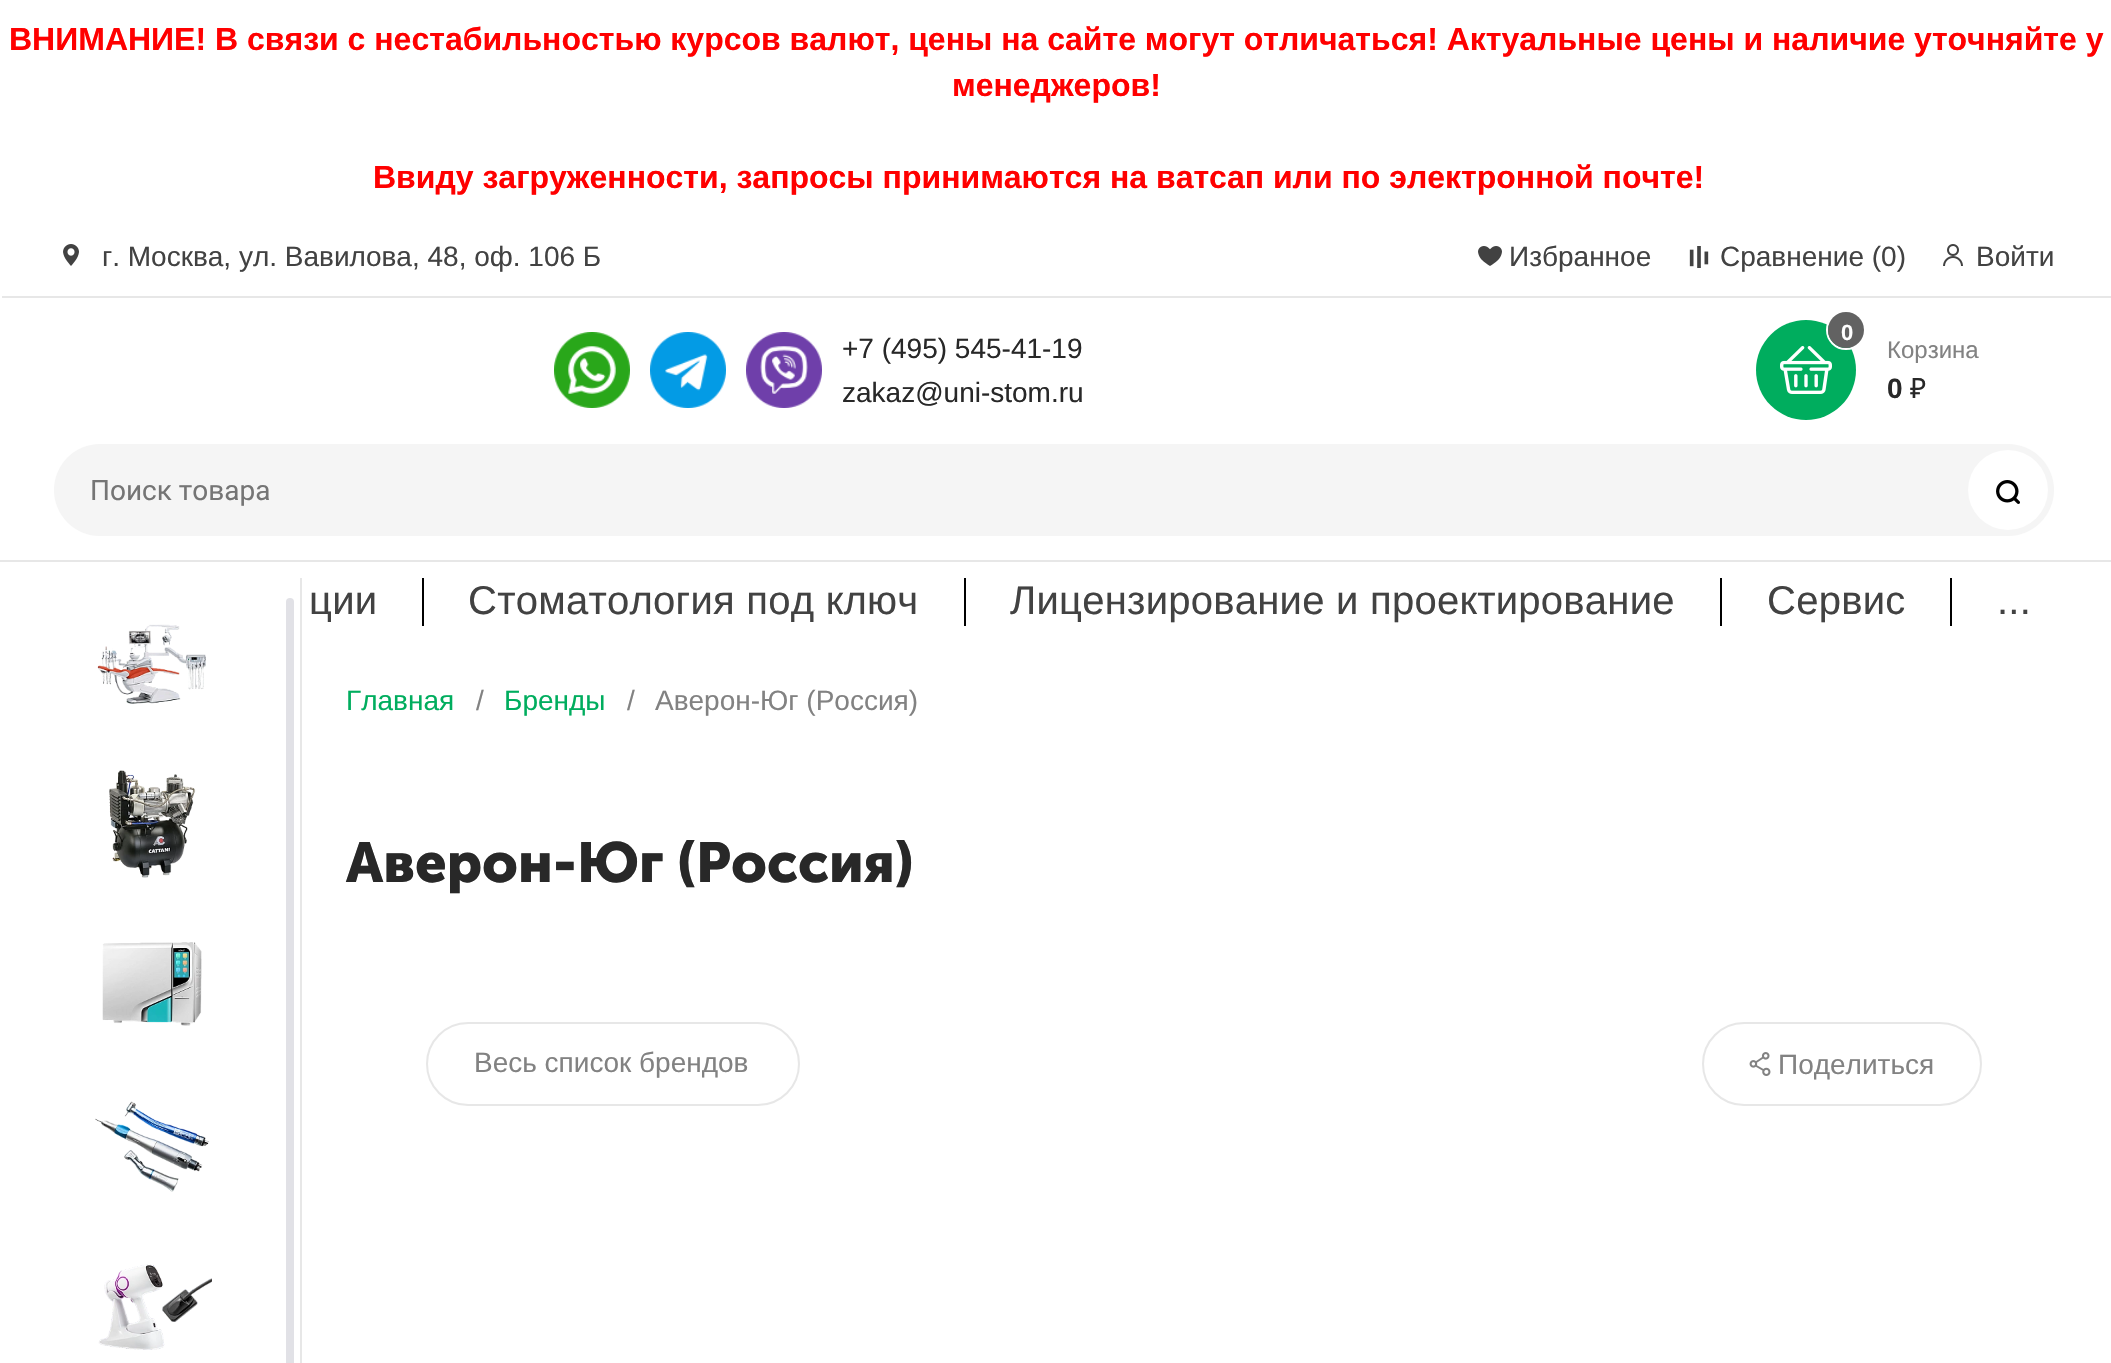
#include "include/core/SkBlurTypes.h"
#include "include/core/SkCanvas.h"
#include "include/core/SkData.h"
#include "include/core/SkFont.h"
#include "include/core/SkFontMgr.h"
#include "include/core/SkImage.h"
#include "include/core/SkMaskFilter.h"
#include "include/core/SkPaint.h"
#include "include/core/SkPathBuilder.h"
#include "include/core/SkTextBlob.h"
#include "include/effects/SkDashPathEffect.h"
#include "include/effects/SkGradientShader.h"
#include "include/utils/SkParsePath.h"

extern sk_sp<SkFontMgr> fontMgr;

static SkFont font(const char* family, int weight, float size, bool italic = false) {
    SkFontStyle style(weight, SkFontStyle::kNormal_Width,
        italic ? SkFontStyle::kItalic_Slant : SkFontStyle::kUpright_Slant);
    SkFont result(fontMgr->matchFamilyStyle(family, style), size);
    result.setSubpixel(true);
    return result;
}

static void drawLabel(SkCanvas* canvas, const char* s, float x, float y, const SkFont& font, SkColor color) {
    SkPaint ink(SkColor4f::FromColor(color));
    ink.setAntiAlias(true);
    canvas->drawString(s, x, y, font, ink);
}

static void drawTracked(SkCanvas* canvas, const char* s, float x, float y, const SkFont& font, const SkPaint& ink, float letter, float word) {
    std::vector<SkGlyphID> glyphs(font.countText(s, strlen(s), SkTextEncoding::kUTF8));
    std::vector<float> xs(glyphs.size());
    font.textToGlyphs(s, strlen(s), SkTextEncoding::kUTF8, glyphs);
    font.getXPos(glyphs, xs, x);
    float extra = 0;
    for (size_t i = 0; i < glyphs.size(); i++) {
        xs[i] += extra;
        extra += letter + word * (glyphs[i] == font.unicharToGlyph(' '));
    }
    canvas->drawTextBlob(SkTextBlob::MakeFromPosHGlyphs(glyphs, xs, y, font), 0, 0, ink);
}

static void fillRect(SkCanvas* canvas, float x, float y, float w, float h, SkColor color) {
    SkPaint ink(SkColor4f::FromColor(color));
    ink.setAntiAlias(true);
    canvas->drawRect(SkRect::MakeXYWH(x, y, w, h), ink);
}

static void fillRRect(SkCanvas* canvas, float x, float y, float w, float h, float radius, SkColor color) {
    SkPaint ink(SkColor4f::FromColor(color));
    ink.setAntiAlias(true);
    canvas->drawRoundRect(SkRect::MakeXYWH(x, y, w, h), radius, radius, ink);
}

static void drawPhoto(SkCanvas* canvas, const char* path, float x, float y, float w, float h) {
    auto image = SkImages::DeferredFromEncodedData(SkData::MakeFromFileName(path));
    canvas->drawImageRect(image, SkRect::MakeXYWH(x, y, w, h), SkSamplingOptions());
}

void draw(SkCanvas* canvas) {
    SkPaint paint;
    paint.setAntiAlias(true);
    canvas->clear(0xFFFFFFFF);
    SkFont font1 = font("Liberation Sans", 700, 32);
    drawLabel(canvas, "ВНИМАНИЕ! В связи с нестабильностью курсов валют, цены на сайте могут отличаться! Актуальные цены и наличие уточняйте у", 9, 50, font1, 0xFFFF0000);
    drawLabel(canvas, "менеджеров!", 952, 96, font1, 0xFFFF0000);
    drawLabel(canvas, "Ввиду загруженности, запросы принимаются на ватсап или по электронной почте!", 373, 188, font1, 0xFFFF0000);
    fillRect(canvas, 2, 296, 2109, 2, 0xFFE7E7E7);
    drawPhoto(canvas, "assets/img1.png", 63, 244, 16, 22);
    SkFont font2 = font("Liberation Sans", 400, 28);
    drawLabel(canvas, "г. Москва, ул. Вавилова, 48, оф. 106 Б", 102, 266, font2, 0xFF424242);
    drawPhoto(canvas, "assets/img2.png", 1478, 246, 24, 20);
    drawLabel(canvas, "Избранное", 1509, 266, font2, 0xFF424242);
    drawPhoto(canvas, "assets/img3.png", 1689, 246, 20, 22);
    drawLabel(canvas, "Сравнение (0)", 1720, 266, font2, 0xFF424242);
    drawPhoto(canvas, "assets/img4.png", 1943, 244, 20, 22);
    drawLabel(canvas, "Войти", 1976, 266, font2, 0xFF424242);
    fillRect(canvas, 0, 560, 2111, 2, 0xFFE7E7E7);
    drawPhoto(canvas, "assets/img5.png", 554, 332, 76, 76);
    drawPhoto(canvas, "assets/img6.png", 650, 332, 76, 76);
    drawPhoto(canvas, "assets/img7.png", 746, 332, 76, 76);
    drawLabel(canvas, "+7 (495) 545-41-19", 842, 358, font2, 0xFF282828);
    drawLabel(canvas, "zakaz@uni-stom.ru", 842, 402, font2, 0xFF282828);
    paint.setColor(0xFF00AD5E);
    canvas->drawCircle(1806, 370, 50, paint);
    drawPhoto(canvas, "assets/img8.png", 1780, 346, 52, 48);
    paint.setStroke(true);
    paint.setStrokeWidth(2);
    paint.setColor(0xFFFFFFFF);
    canvas->drawCircle(1846, 330, 19, paint);
    paint.setStroke(false);
    paint.setColor(0xFF626262);
    canvas->drawCircle(1846, 330, 18, paint);
    SkFont font3 = font("Liberation Sans", 700, 22);
    drawLabel(canvas, "0", 1841, 340, font3, 0xFFFFFFFF);
    SkFont font4 = font("Liberation Sans", 400, 24);
    drawLabel(canvas, "Корзина", 1887, 358, font4, 0xFF828282);
    SkFont font5 = font("Liberation Sans", 700, 28);
    drawLabel(canvas, "0", 1887, 398, font5, 0xFF282828);
    SkFont font6 = font("Noto Sans", 400, 28);
    drawLabel(canvas, "₽", 1910, 398, font6, 0xFF282828);
    fillRRect(canvas, 54, 444, 2000, 92, 46, 0xFFF5F5F5);
    SkFont font7 = font("Roboto", 400, 28);
    drawLabel(canvas, "Поиск товара", 90, 500, font7, 0xFF757575);
    paint.setColor(0xFFFFFFFF);
    canvas->drawCircle(2008, 490, 40, paint);
    drawPhoto(canvas, "assets/img9.png", 1996, 480, 24, 24);
    SkFont font8 = font("Liberation Sans", 400, 40);
    paint.setColor(0xFF424242);
    drawTracked(canvas, "ции", 309, 614, font8, paint, 0.25f, 0);
    fillRect(canvas, 422, 578, 2, 48, 0xFF000000);
    drawTracked(canvas, "Стоматология под ключ", 468, 614, font8, paint, 0.25f, 0);
    fillRect(canvas, 964, 578, 2, 48, 0xFF000000);
    drawTracked(canvas, "Лицензирование и проектирование", 1010, 614, font8, paint, 0.25f, 0);
    fillRect(canvas, 1720, 578, 2, 48, 0xFF000000);
    drawTracked(canvas, "Сервис", 1767, 614, font8, paint, 0.25f, 0);
    fillRect(canvas, 1950, 578, 2, 48, 0xFF000000);
    drawTracked(canvas, "...", 1997, 614, font8, paint, 0.25f, 0);
    fillRect(canvas, 300, 578, 2, 785, 0xFFE7E7E7);
    drawPhoto(canvas, "assets/img10.png", 97, 624, 109, 80);
    drawPhoto(canvas, "assets/img11.png", 109, 770, 87, 108);
    drawPhoto(canvas, "assets/img12.png", 102, 942, 100, 84);
    drawPhoto(canvas, "assets/img13.png", 95, 1101, 114, 91);
    drawPhoto(canvas, "assets/img14.png", 98, 1264, 114, 86);
    fillRRect(canvas, 286, 598, 8, 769, 4, 0xFFE1E1E6);
    drawLabel(canvas, "Главная", 346, 710, font2, 0xFF00AD5E);
    drawLabel(canvas, "/", 476, 710, font2, 0xFF828282);
    drawLabel(canvas, "Бренды", 504, 710, font2, 0xFF00AD5E);
    drawLabel(canvas, "/", 627, 710, font2, 0xFF828282);
    drawLabel(canvas, "Аверон-Юг (Россия)", 655, 710, font2, 0xFF828282);
    SkFont font9 = font("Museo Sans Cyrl", 700, 56);
    drawLabel(canvas, "Аверон-Юг (Россия)", 346, 882, font9, 0xFF282828);
    paint.setStroke(true);
    paint.setColor(0xFFE7E7E7);
    canvas->drawRoundRect(SkRect::MakeXYWH(427, 1023, 372, 82), 41, 41, paint);
    drawLabel(canvas, "Весь список брендов", 474, 1072, font2, 0xFF828282);
    canvas->drawRoundRect(SkRect::MakeXYWH(1703, 1023, 278, 82), 41, 41, paint);
    drawPhoto(canvas, "assets/img15.png", 1749, 1052, 22, 24);
    drawLabel(canvas, "Поделиться", 1778, 1074, font2, 0xFF828282);
}
